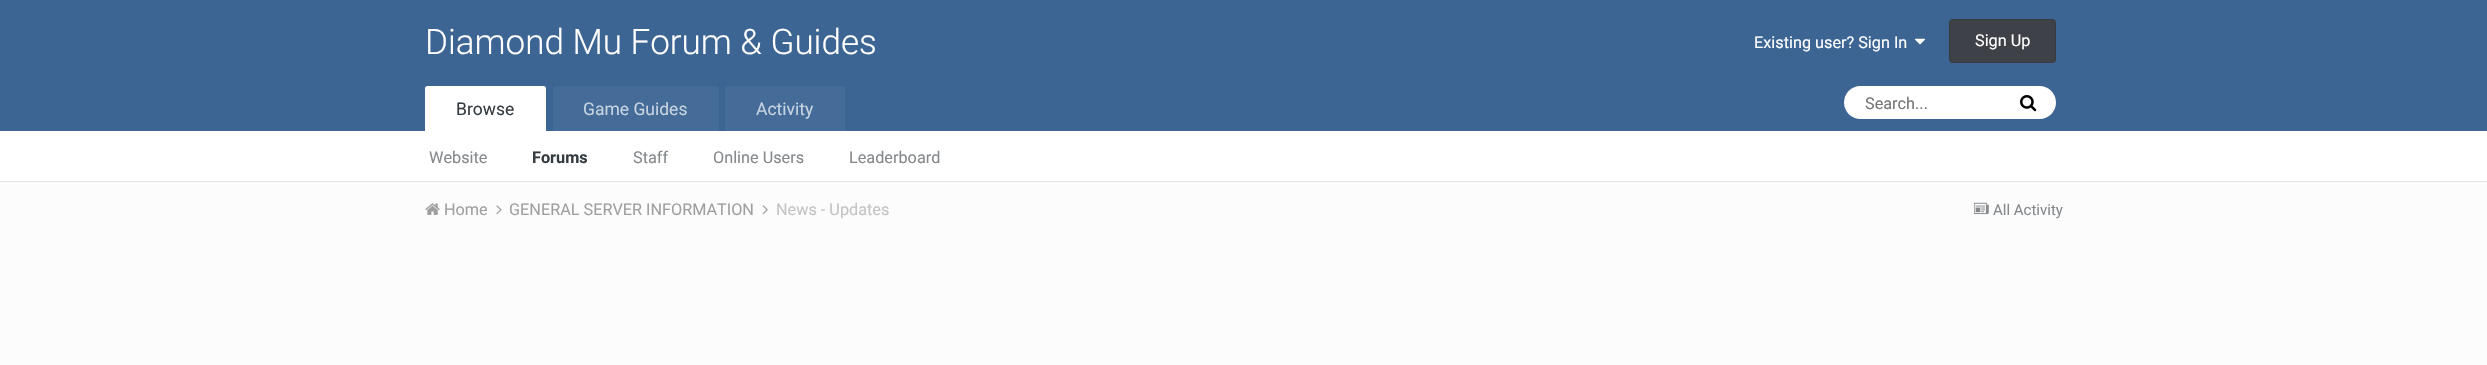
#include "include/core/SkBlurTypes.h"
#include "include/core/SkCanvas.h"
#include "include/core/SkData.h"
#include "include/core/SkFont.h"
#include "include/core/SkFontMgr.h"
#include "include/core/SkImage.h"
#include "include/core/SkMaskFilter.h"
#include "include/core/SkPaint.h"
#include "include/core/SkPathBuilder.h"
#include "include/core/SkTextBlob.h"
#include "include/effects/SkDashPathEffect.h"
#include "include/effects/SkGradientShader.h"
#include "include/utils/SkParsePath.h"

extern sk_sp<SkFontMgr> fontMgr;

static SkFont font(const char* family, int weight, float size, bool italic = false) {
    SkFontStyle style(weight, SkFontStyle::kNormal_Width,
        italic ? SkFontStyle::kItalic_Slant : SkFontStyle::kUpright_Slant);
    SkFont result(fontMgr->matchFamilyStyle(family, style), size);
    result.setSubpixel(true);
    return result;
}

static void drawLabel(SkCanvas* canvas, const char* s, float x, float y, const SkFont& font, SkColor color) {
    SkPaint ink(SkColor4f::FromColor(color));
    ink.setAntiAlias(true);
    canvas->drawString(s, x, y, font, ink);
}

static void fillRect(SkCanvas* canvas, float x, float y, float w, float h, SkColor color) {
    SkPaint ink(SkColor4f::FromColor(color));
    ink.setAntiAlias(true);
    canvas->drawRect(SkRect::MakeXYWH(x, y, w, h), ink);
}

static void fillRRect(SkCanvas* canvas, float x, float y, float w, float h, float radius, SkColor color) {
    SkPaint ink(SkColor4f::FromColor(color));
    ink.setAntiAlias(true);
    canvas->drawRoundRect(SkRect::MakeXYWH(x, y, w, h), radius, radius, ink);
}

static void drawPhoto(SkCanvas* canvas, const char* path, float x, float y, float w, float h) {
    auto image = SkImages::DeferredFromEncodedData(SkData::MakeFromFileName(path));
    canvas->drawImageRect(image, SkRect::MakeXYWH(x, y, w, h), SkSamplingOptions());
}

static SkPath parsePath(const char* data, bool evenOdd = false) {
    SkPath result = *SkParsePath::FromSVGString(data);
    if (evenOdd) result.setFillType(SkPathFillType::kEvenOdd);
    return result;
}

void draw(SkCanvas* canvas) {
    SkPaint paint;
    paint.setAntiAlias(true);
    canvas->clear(0xFFFCFCFC);
    fillRect(canvas, 0, 181, 2487, 1, 0xFFE3E3E3);
    fillRect(canvas, 0, 0, 2487, 131, 0xFF3D6594);
    SkFont font1 = font("Roboto", 300, 35);
    drawLabel(canvas, "Diamond Mu Forum & Guides", 425, 54, font1, 0xFFFFFFFF);
    SkFont font2 = font("Roboto", 400, 16.25f);
    drawLabel(canvas, "Existing user? Sign In", 1754, 48, font2, 0xFFFFFFFF);
    drawPhoto(canvas, "assets/img1.png", 1915, 38, 10, 7);
    fillRRect(canvas, 1949, 19, 107, 44, 4, 0xFF3E4148);
    paint.setStroke(true);
    paint.setStrokeWidth(1);
    paint.setColor(0x1A000000);
    canvas->drawRoundRect(SkRect::MakeXYWH(1949.5f, 19.5f, 106, 43), 3.5f, 3.5f, paint);
    drawLabel(canvas, "Sign Up", 1975, 46, font2, 0xFFFFFFFF);
    fillRect(canvas, 0, 131, 2487, 50, 0xFFFFFFFF);
    paint.setStroke(false);
    paint.setColor(0xFF456B98);
    canvas->drawPath(parsePath("M555.5 86H716.5C718 86 719 87 719 88.5V131H553V88.5C553 87 554 86 555.5 86Z"), paint);
    SkFont font3 = font("Roboto", 400, 17.5f);
    drawLabel(canvas, "Game Guides", 583, 115, font3, 0xFFC7D3E0);
    paint.setColor(0xFFFFFFFF);
    canvas->drawPath(parsePath("M427.5 86H543.5C545 86 546 87 546 88.5V131H425V88.5C425 87 426 86 427.5 86Z"), paint);
    drawLabel(canvas, "Browse", 456, 115, font3, 0xFF353C41);
    drawLabel(canvas, "Website", 429, 163, font2, 0xFF85898C);
    SkFont font4 = font("Roboto", 700, 16.25f);
    drawLabel(canvas, "Forums", 532, 163, font4, 0xFF353C41);
    drawLabel(canvas, "Staff", 633, 163, font2, 0xFF85898C);
    drawLabel(canvas, "Online Users", 713, 163, font2, 0xFF85898C);
    drawLabel(canvas, "Leaderboard", 849, 163, font2, 0xFF85898C);
    paint.setColor(0xFF456B98);
    canvas->drawPath(parsePath("M727.5 86H842.5C844 86 845 87 845 88.5V131H725V88.5C725 87 726 86 727.5 86Z"), paint);
    drawLabel(canvas, "Activity", 756, 115, font3, 0xFFC7D3E0);
    fillRRect(canvas, 1844, 86, 212, 33, 16.5f, 0xFFFFFFFF);
    drawLabel(canvas, "Search...", 1865, 109, font2, 0xFF757575);
    drawPhoto(canvas, "assets/img2.png", 2020, 95, 17, 17);
    drawPhoto(canvas, "assets/img3.png", 425, 203, 15, 12);
    drawLabel(canvas, "Home", 444, 215, font2, 0xFF9F9F9F);
    drawPhoto(canvas, "assets/img4.png", 496, 205, 6, 10);
    drawLabel(canvas, "GENERAL SERVER INFORMATION", 509, 215, font2, 0xFF9F9F9F);
    drawPhoto(canvas, "assets/img5.png", 762, 205, 6, 10);
    drawLabel(canvas, "News - Updates", 776, 215, font2, 0xFFC4C4C4);
    drawPhoto(canvas, "assets/img6.png", 1974, 202, 15, 13);
    SkFont font5 = font("Roboto", 400, 15);
    drawLabel(canvas, "All Activity", 1993, 215, font5, 0xFF85898C);
}
